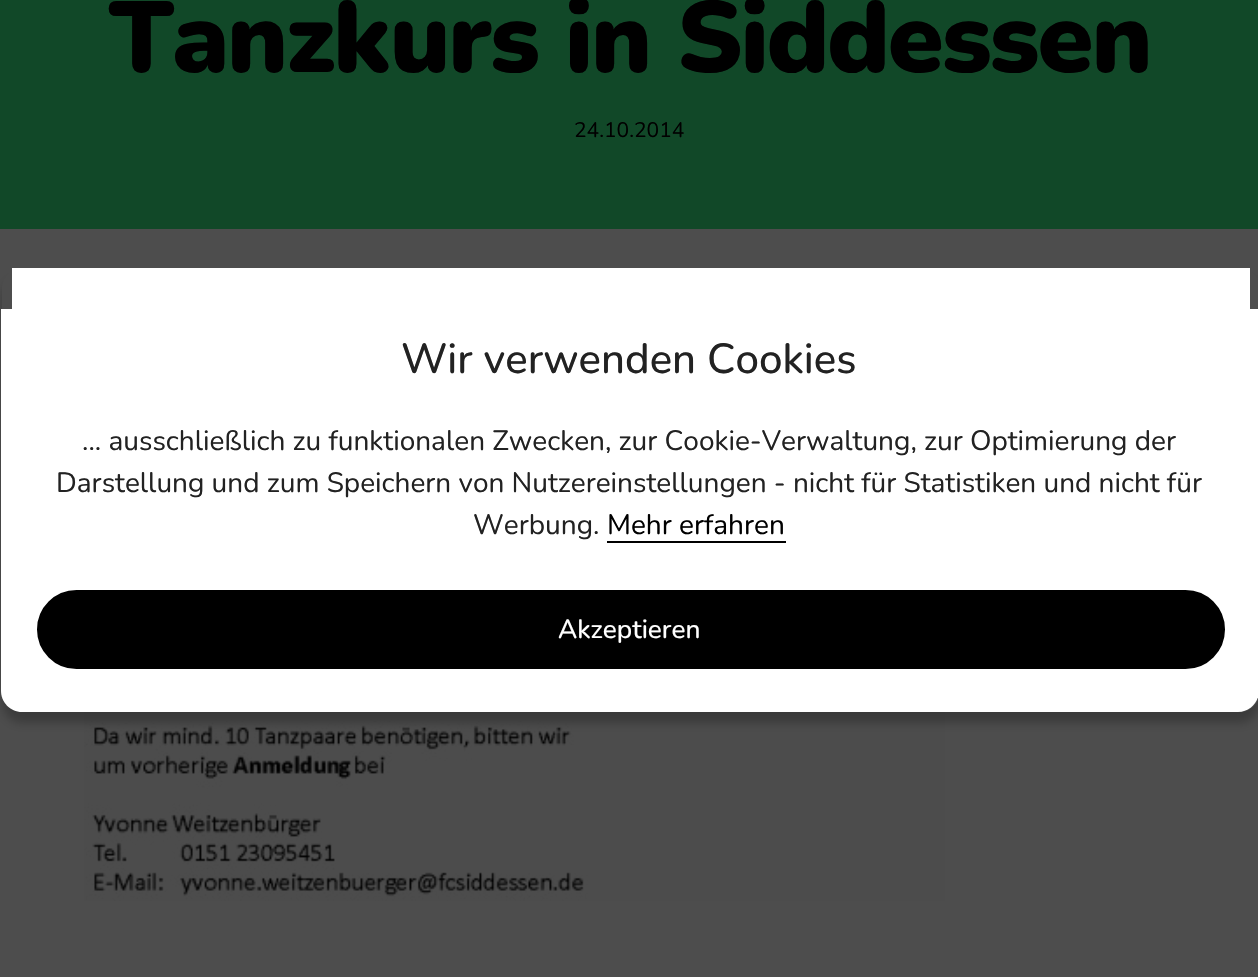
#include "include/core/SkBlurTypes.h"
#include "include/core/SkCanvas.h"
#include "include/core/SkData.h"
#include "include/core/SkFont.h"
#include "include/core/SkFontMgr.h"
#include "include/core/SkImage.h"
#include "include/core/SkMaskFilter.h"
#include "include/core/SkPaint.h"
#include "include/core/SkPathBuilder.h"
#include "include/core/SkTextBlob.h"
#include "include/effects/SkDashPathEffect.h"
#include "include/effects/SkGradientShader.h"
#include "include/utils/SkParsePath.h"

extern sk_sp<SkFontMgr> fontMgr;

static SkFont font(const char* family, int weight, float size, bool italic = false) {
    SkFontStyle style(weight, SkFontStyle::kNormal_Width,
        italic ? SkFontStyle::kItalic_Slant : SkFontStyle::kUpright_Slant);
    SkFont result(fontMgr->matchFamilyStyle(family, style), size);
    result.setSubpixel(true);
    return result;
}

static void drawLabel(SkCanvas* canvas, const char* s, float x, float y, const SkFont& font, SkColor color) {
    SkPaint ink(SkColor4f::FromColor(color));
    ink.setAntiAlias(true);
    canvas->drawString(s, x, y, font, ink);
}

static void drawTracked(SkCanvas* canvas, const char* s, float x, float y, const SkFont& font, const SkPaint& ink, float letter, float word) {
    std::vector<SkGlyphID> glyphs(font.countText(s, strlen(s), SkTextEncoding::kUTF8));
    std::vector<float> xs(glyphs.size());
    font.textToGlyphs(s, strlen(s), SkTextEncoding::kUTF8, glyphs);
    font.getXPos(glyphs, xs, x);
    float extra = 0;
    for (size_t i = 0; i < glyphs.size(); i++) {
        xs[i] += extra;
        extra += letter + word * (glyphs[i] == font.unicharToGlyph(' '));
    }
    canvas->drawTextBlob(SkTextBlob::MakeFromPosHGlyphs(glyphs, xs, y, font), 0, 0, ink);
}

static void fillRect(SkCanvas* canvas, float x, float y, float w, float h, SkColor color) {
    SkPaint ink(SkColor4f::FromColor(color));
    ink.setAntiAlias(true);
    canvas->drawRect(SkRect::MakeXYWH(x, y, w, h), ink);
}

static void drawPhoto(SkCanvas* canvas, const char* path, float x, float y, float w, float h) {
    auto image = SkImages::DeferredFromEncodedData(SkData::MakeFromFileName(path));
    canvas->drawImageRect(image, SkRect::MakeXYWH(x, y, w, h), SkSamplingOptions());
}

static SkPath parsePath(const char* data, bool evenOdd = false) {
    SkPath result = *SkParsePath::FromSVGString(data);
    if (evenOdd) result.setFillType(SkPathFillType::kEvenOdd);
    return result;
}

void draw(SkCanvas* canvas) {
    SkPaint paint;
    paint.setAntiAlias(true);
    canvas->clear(0xFF4D4D4D);
    fillRect(canvas, 0, 0, 1258, 229, 0xFF114828);
    SkFont font1 = font("Nunito", 200, 100.75f);
    paint.setColor(0xFF000000);
    drawTracked(canvas, "Tanzkurs in Siddessen", 109, 72, font1, paint, -2, 0);
    SkFont font2 = font("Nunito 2", 200, 21);
    drawLabel(canvas, "24.10.2014", 574, 137, font2, 0xFF000000);
    drawPhoto(canvas, "assets/img1.png", 84, 712, 861, 189);
    canvas->save();
    canvas->clipPath(parsePath("M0 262H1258V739H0ZM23 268H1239C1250.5 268 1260 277.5 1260 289V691C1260 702.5 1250.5 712 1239 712H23C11.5 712 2 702.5 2 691V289C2 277.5 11.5 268 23 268Z", true), true);
    paint.setColor(0x3B000000);
    paint.setMaskFilter(SkMaskFilter::MakeBlur(kNormal_SkBlurStyle, 5));
    canvas->drawRoundRect(SkRect::MakeXYWH(2, 278, 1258, 445), 21, 21, paint);
    paint.setMaskFilter(nullptr);
    canvas->restore();
    paint.setColor(0xFFFFFFFF);
    canvas->drawPath(parsePath("M22 309H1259V691C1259 702 1250 712 1238 712H22C10 712 1 702 1 691V309Z"), paint);
    fillRect(canvas, 12, 268, 1238, 41, 0xFFFFFFFF);
    SkFont font3 = font("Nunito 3", 200, 42);
    drawLabel(canvas, "Wir verwenden Cookies", 401, 373, font3, 0xFF222222);
    SkFont font4 = font("Nunito 2", 200, 28);
    drawLabel(canvas, "... ausschließlich zu funktionalen Zwecken, zur Cookie-Verwaltung, zur Optimierung der", 82, 450, font4, 0xFF222222);
    drawLabel(canvas, "Darstellung und zum Speichern von Nutzereinstellungen - nicht für Statistiken und nicht für", 56, 492, font4, 0xFF222222);
    drawLabel(canvas, "Werbung.", 473, 534, font4, 0xFF222222);
    drawLabel(canvas, "Mehr erfahren", 607, 534, font4, 0xFF000000);
    fillRect(canvas, 607, 541, 179, 2, 0xFF000000);
    paint.setColor(0xFF000000);
    canvas->drawRoundRect(SkRect::MakeXYWH(38, 591, 1186, 77), 38.5f, 38.5f, paint);
    paint.setStroke(true);
    paint.setStrokeWidth(2);
    canvas->drawRoundRect(SkRect::MakeXYWH(38, 591, 1186, 77), 38.5f, 38.5f, paint);
    SkFont font5 = font("Nunito 3", 200, 26.25f);
    drawLabel(canvas, "Akzeptieren", 558, 638, font5, 0xFFFFFFFF);
}
